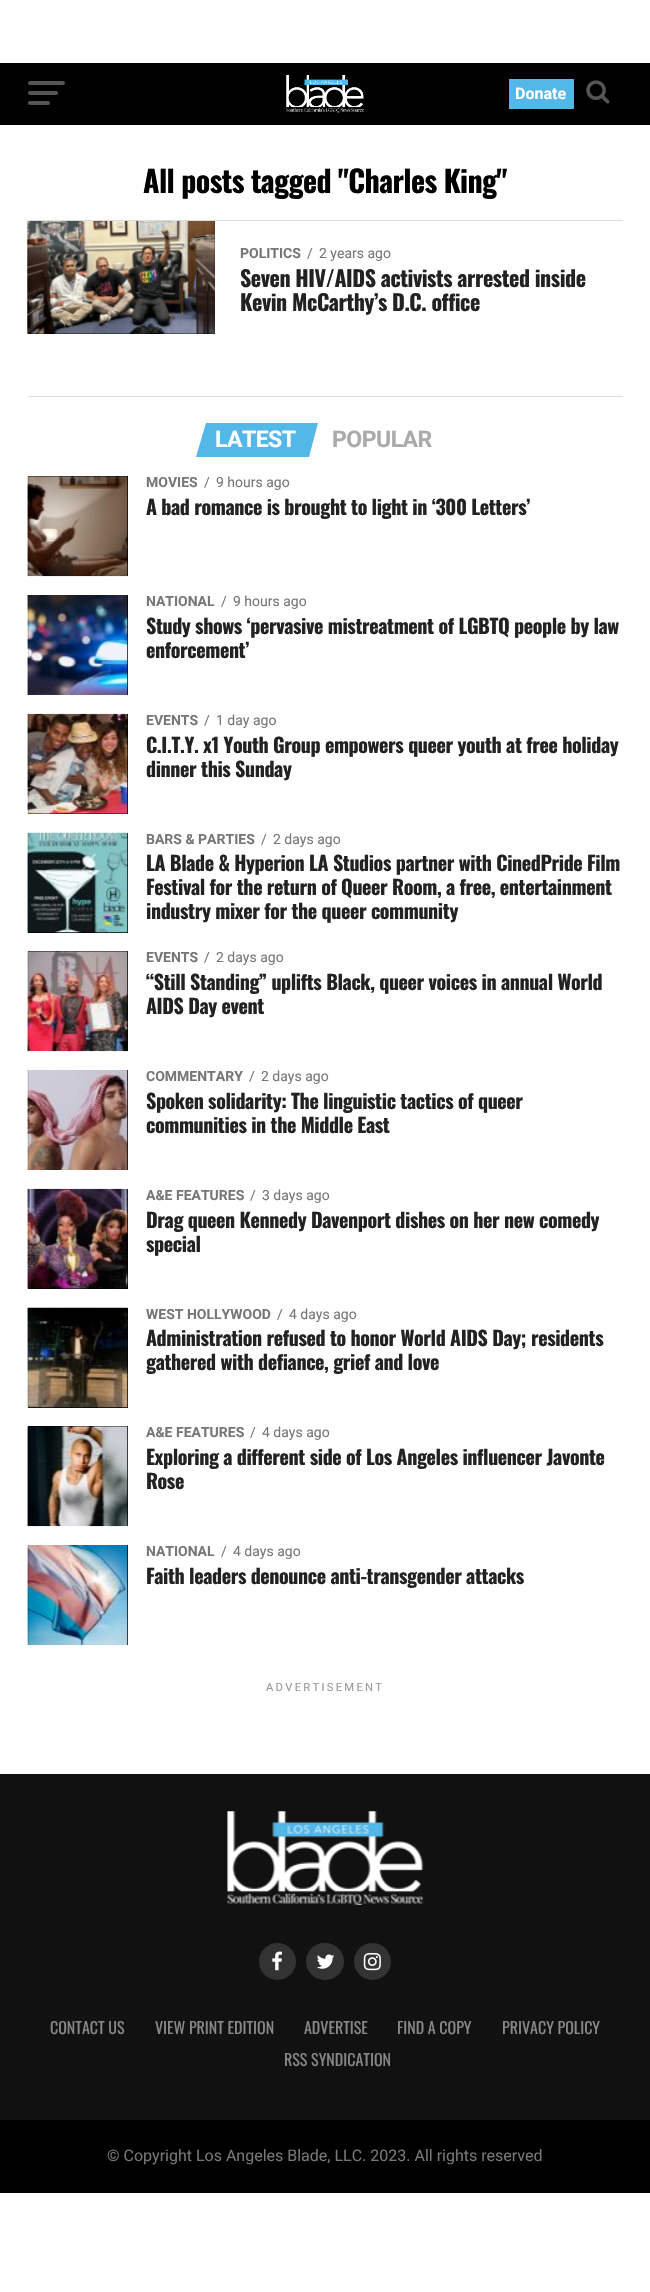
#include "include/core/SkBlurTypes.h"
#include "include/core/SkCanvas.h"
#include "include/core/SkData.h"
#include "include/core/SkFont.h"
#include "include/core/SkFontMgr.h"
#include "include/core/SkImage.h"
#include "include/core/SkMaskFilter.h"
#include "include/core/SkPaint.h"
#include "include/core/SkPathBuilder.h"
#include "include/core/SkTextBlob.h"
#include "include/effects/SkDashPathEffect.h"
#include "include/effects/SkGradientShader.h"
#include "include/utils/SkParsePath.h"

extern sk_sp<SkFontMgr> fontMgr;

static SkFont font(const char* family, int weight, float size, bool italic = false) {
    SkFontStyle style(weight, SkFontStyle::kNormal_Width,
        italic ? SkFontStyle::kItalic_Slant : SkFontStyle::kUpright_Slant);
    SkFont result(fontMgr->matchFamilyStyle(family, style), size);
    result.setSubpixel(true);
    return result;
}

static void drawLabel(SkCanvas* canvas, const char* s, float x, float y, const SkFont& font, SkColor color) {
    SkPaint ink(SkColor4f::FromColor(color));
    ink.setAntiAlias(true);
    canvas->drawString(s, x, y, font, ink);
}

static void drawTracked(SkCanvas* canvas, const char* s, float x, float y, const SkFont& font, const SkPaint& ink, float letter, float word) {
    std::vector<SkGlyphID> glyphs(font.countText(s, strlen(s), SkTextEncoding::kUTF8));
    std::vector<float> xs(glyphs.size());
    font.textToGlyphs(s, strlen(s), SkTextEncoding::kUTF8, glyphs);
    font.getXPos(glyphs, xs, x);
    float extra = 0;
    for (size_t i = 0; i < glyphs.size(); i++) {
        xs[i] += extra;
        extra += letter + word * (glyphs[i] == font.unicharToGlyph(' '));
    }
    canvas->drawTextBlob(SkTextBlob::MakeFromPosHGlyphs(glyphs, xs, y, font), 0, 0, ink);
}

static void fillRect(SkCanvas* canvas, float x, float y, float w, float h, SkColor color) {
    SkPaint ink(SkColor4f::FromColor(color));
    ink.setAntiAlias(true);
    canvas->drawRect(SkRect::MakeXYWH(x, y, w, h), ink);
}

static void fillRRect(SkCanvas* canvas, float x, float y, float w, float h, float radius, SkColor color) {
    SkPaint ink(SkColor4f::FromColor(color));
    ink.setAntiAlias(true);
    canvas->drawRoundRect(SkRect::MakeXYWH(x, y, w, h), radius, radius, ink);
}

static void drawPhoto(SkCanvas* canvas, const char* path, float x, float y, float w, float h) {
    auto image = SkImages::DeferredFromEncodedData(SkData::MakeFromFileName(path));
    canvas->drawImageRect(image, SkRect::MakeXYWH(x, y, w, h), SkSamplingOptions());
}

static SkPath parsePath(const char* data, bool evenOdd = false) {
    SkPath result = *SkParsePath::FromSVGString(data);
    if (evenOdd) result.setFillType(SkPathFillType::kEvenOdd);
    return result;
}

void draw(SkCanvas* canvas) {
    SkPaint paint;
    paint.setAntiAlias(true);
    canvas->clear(0xFFFFFFFF);
    fillRect(canvas, 0, 63, 650, 62, 0xFF000000);
    fillRRect(canvas, 28, 81, 37, 4, 2, 0xFF555555);
    fillRRect(canvas, 28, 91, 30, 4, 2, 0xFF555555);
    fillRRect(canvas, 28, 101, 22, 4, 2, 0xFF555555);
    drawPhoto(canvas, "assets/img1.png", 286, 75, 78, 38);
    fillRect(canvas, 509, 79, 65, 30, 0xFF53B7E8);
    SkFont font1 = font("Roboto", 700, 16);
    drawLabel(canvas, "Donate", 515, 99, font1, 0xFFFFFFFF);
    drawPhoto(canvas, "assets/img2.png", 586, 80, 24, 24);
    SkFont font2 = font("Oswald", 700, 30);
    paint.setColor(0xFF000000);
    drawTracked(canvas, "All posts tagged \"Charles King\"", 143, 193, font2, paint, -0.6f, 0);
    fillRect(canvas, 28, 220, 595, 1, 0xFFDDDDDD);
    fillRect(canvas, 28, 221, 187, 113, 0xFF000000);
    drawPhoto(canvas, "assets/img3.png", 27, 221, 188, 113);
    SkFont font3 = font("Roboto", 700, 14);
    drawLabel(canvas, "POLITICS", 240, 258, font3, 0xFF777777);
    SkFont font4 = font("Roboto", 400, 14);
    drawLabel(canvas, "/", 307, 258, font4, 0xFF777777);
    drawLabel(canvas, "2 years ago", 319, 258, font4, 0xFF777777);
    SkFont font5 = font("Oswald", 700, 22);
    paint.setColor(0xFF222222);
    drawTracked(canvas, "Seven HIV/AIDS activists arrested inside", 240, 287, font5, paint, -0.45f, 0);
    drawTracked(canvas, "Kevin McCarthy’s D.C. office", 240, 311, font5, paint, -0.45f, 0);
    fillRect(canvas, 28, 396, 595, 1, 0xFFDDDDDD);
    paint.setColor(0xFF53B7E8);
    canvas->drawPath(parsePath("M206 423H318L309 457H196Z"), paint);
    SkFont font6 = font("Roboto", 700, 23);
    paint.setColor(0xFFFFFFFF);
    drawTracked(canvas, "LATEST", 215, 447, font6, paint, -0.5f, 0);
    paint.setColor(0xFFAAAAAA);
    drawTracked(canvas, "POPULAR", 332, 447, font6, paint, -0.5f, 0);
    fillRect(canvas, 28, 476, 100, 100, 0xFF000000);
    drawPhoto(canvas, "assets/img4.png", 27, 476, 101, 101);
    drawLabel(canvas, "MOVIES", 146, 487, font3, 0xFF777777);
    drawLabel(canvas, "/", 204, 487, font4, 0xFF777777);
    drawLabel(canvas, "9 hours ago", 216, 487, font4, 0xFF777777);
    SkFont font7 = font("Oswald", 700, 20);
    paint.setColor(0xFF222222);
    drawTracked(canvas, "A bad romance is brought to light in ‘300 Letters’", 146, 515, font7, paint, -0.4f, 0);
    fillRect(canvas, 28, 595, 100, 100, 0xFF000000);
    drawPhoto(canvas, "assets/img5.png", 27, 595, 101, 100);
    drawLabel(canvas, "NATIONAL", 146, 606, font3, 0xFF777777);
    drawLabel(canvas, "/", 221, 606, font4, 0xFF777777);
    drawLabel(canvas, "9 hours ago", 233, 606, font4, 0xFF777777);
    drawTracked(canvas, "Study shows ‘pervasive mistreatment of LGBTQ people by law", 146, 634, font7, paint, -0.4f, 0);
    drawTracked(canvas, "enforcement’", 146, 658, font7, paint, -0.4f, 0);
    fillRect(canvas, 28, 714, 100, 100, 0xFF000000);
    drawPhoto(canvas, "assets/img6.png", 27, 713, 101, 101);
    drawLabel(canvas, "EVENTS", 146, 725, font3, 0xFF777777);
    drawLabel(canvas, "/", 204, 725, font4, 0xFF777777);
    drawLabel(canvas, "1 day ago", 216, 725, font4, 0xFF777777);
    drawTracked(canvas, "C.I.T.Y. x1 Youth Group empowers queer youth at free holiday", 146, 753, font7, paint, -0.4f, 0);
    drawTracked(canvas, "dinner this Sunday", 146, 777, font7, paint, -0.4f, 0);
    fillRect(canvas, 28, 833, 100, 100, 0xFF000000);
    drawPhoto(canvas, "assets/img7.png", 27, 832, 101, 101);
    drawLabel(canvas, "BARS & PARTIES", 146, 844, font3, 0xFF777777);
    drawLabel(canvas, "/", 261, 844, font4, 0xFF777777);
    drawLabel(canvas, "2 days ago", 273, 844, font4, 0xFF777777);
    drawTracked(canvas, "LA Blade & Hyperion LA Studios partner with CinedPride Film", 146, 871, font7, paint, -0.4f, 0);
    drawTracked(canvas, "Festival for the return of Queer Room, a free, entertainment", 146, 895, font7, paint, -0.4f, 0);
    drawTracked(canvas, "industry mixer for the queer community", 146, 919, font7, paint, -0.4f, 0);
    fillRect(canvas, 28, 951, 100, 100, 0xFF000000);
    drawPhoto(canvas, "assets/img8.png", 27, 951, 101, 101);
    drawLabel(canvas, "EVENTS", 146, 962, font3, 0xFF777777);
    drawLabel(canvas, "/", 204, 962, font4, 0xFF777777);
    drawLabel(canvas, "2 days ago", 216, 962, font4, 0xFF777777);
    drawTracked(canvas, "“Still Standing” uplifts Black, queer voices in annual World", 146, 990, font7, paint, -0.4f, 0);
    drawTracked(canvas, "AIDS Day event", 146, 1014, font7, paint, -0.4f, 0);
    fillRect(canvas, 28, 1070, 100, 100, 0xFF000000);
    drawPhoto(canvas, "assets/img9.png", 27, 1070, 101, 100);
    drawLabel(canvas, "COMMENTARY", 146, 1081, font3, 0xFF777777);
    drawLabel(canvas, "/", 249, 1081, font4, 0xFF777777);
    drawLabel(canvas, "2 days ago", 261, 1081, font4, 0xFF777777);
    drawTracked(canvas, "Spoken solidarity: The linguistic tactics of queer", 146, 1109, font7, paint, -0.4f, 0);
    drawTracked(canvas, "communities in the Middle East", 146, 1133, font7, paint, -0.4f, 0);
    fillRect(canvas, 28, 1189, 100, 100, 0xFF000000);
    drawPhoto(canvas, "assets/img10.png", 27, 1188, 101, 101);
    drawLabel(canvas, "A&E FEATURES", 146, 1200, font3, 0xFF777777);
    drawLabel(canvas, "/", 250, 1200, font4, 0xFF777777);
    drawLabel(canvas, "3 days ago", 262, 1200, font4, 0xFF777777);
    drawTracked(canvas, "Drag queen Kennedy Davenport dishes on her new comedy", 146, 1228, font7, paint, -0.4f, 0);
    drawTracked(canvas, "special", 146, 1252, font7, paint, -0.4f, 0);
    fillRect(canvas, 28, 1308, 100, 100, 0xFF000000);
    drawPhoto(canvas, "assets/img11.png", 27, 1307, 101, 101);
    drawLabel(canvas, "WEST HOLLYWOOD", 146, 1319, font3, 0xFF777777);
    drawLabel(canvas, "/", 277, 1319, font4, 0xFF777777);
    drawLabel(canvas, "4 days ago", 289, 1319, font4, 0xFF777777);
    drawTracked(canvas, "Administration refused to honor World AIDS Day; residents", 146, 1346, font7, paint, -0.4f, 0);
    drawTracked(canvas, "gathered with defiance, grief and love", 146, 1370, font7, paint, -0.4f, 0);
    fillRect(canvas, 28, 1426, 100, 100, 0xFF000000);
    drawPhoto(canvas, "assets/img12.png", 27, 1426, 101, 101);
    drawLabel(canvas, "A&E FEATURES", 146, 1437, font3, 0xFF777777);
    drawLabel(canvas, "/", 250, 1437, font4, 0xFF777777);
    drawLabel(canvas, "4 days ago", 262, 1437, font4, 0xFF777777);
    drawTracked(canvas, "Exploring a different side of Los Angeles influencer Javonte", 146, 1465, font7, paint, -0.4f, 0);
    drawTracked(canvas, "Rose", 146, 1489, font7, paint, -0.4f, 0);
    fillRect(canvas, 28, 1545, 100, 100, 0xFF000000);
    drawPhoto(canvas, "assets/img13.png", 27, 1545, 101, 100);
    drawLabel(canvas, "NATIONAL", 146, 1556, font3, 0xFF777777);
    drawLabel(canvas, "/", 221, 1556, font4, 0xFF777777);
    drawLabel(canvas, "4 days ago", 233, 1556, font4, 0xFF777777);
    drawTracked(canvas, "Faith leaders denounce anti-transgender attacks", 146, 1584, font7, paint, -0.4f, 0);
    SkFont font8 = font("Roboto", 400, 11.25f);
    paint.setColor(0xFF999999);
    drawTracked(canvas, "ADVERTISEMENT", 266, 1691, font8, paint, 2.25f, 0);
    fillRect(canvas, 0, 1774, 650, 346, 0xFF111111);
    drawPhoto(canvas, "assets/img14.png", 227, 1811, 197, 94);
    paint.setColor(0xFF333333);
    canvas->drawCircle(277.5f, 1961.5f, 18.5f, paint);
    drawPhoto(canvas, "assets/img15.png", 272, 1951, 10, 20);
    fillRRect(canvas, 306, 1943, 38, 37, 18.5f, 0xFF333333);
    drawPhoto(canvas, "assets/img16.png", 317, 1954, 18, 15);
    canvas->drawCircle(372.5f, 1961.5f, 18.5f, paint);
    drawPhoto(canvas, "assets/img17.png", 363, 1953, 18, 18);
    SkFont font9 = font("Oswald", 400, 16);
    drawLabel(canvas, "CONTACT US", 50, 2034, font9, 0xFF888888);
    drawLabel(canvas, "VIEW PRINT EDITION", 155, 2034, font9, 0xFF888888);
    drawLabel(canvas, "ADVERTISE", 304, 2034, font9, 0xFF888888);
    drawLabel(canvas, "FIND A COPY", 397, 2034, font9, 0xFF888888);
    drawLabel(canvas, "PRIVACY POLICY", 502, 2034, font9, 0xFF888888);
    drawLabel(canvas, "RSS SYNDICATION", 284, 2066, font9, 0xFF888888);
    fillRect(canvas, 0, 2120, 650, 73, 0xFF000000);
    SkFont font10 = font("Roboto", 400, 16);
    drawLabel(canvas, "© Copyright Los Angeles Blade, LLC. 2023. All rights reserved", 107, 2161, font10, 0xFF777777);
}
